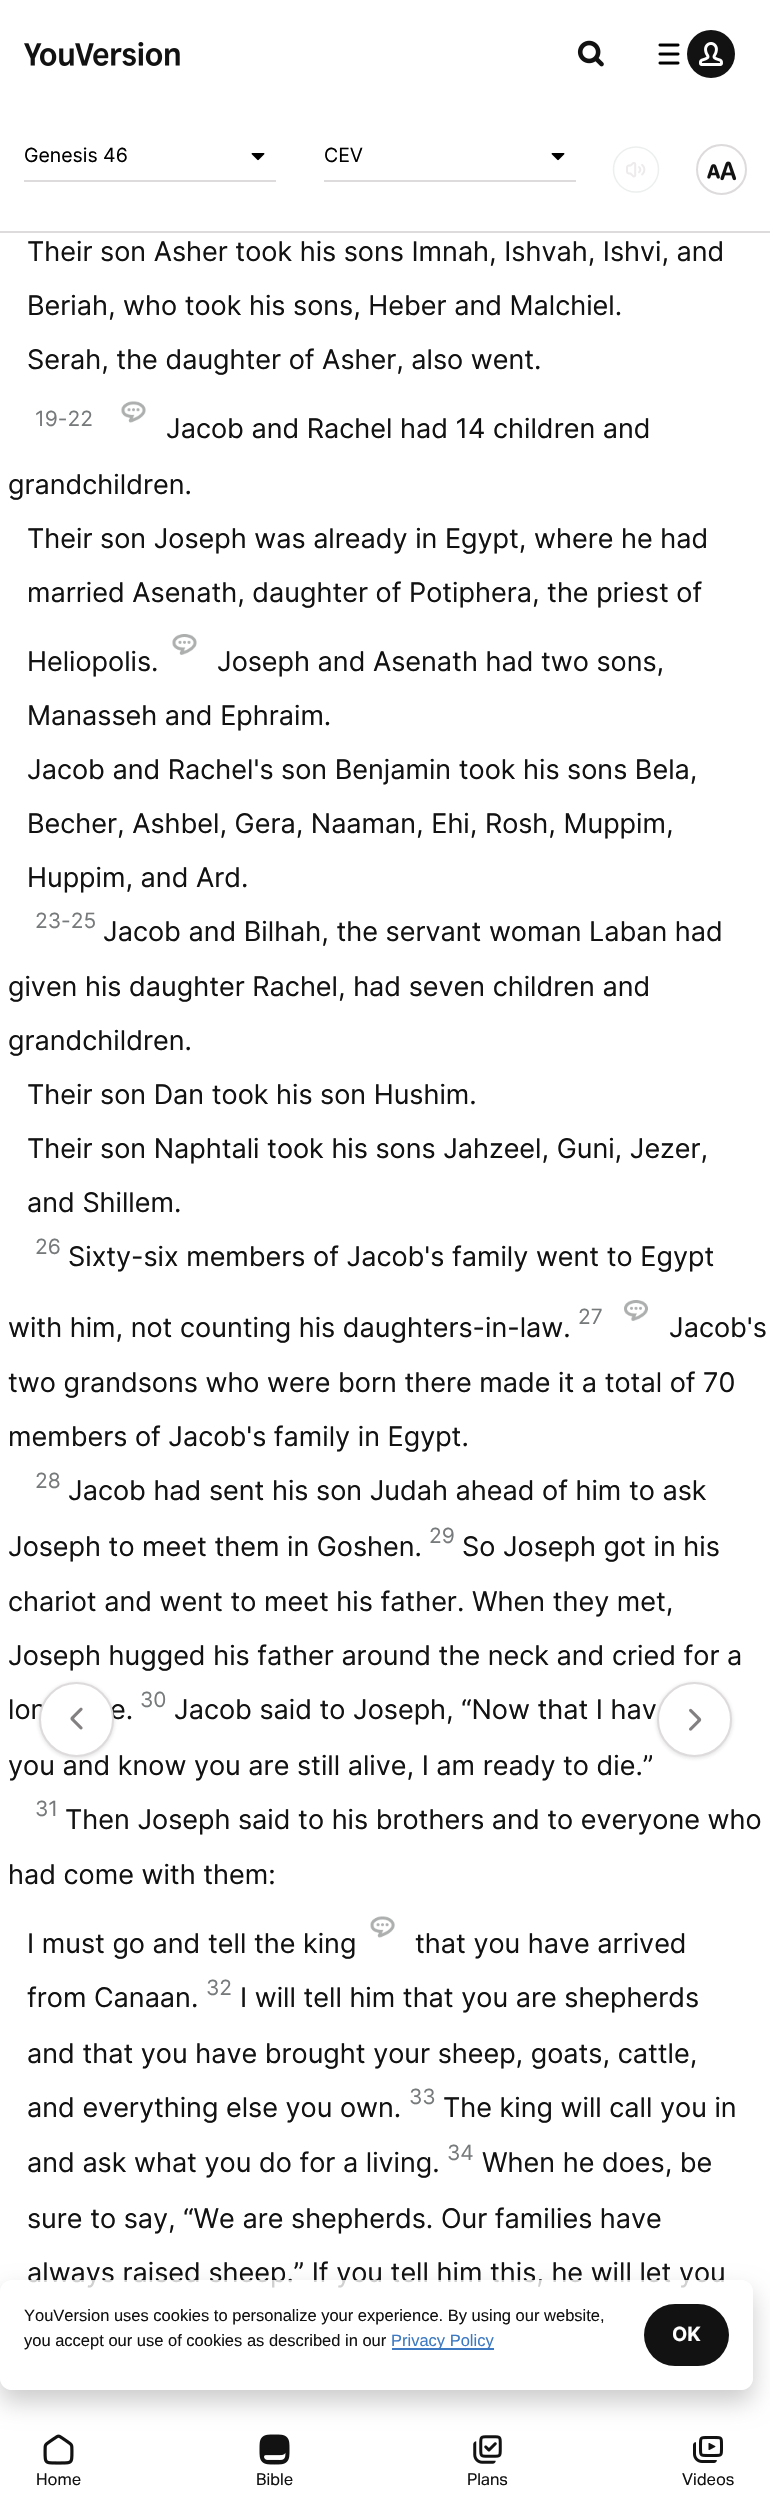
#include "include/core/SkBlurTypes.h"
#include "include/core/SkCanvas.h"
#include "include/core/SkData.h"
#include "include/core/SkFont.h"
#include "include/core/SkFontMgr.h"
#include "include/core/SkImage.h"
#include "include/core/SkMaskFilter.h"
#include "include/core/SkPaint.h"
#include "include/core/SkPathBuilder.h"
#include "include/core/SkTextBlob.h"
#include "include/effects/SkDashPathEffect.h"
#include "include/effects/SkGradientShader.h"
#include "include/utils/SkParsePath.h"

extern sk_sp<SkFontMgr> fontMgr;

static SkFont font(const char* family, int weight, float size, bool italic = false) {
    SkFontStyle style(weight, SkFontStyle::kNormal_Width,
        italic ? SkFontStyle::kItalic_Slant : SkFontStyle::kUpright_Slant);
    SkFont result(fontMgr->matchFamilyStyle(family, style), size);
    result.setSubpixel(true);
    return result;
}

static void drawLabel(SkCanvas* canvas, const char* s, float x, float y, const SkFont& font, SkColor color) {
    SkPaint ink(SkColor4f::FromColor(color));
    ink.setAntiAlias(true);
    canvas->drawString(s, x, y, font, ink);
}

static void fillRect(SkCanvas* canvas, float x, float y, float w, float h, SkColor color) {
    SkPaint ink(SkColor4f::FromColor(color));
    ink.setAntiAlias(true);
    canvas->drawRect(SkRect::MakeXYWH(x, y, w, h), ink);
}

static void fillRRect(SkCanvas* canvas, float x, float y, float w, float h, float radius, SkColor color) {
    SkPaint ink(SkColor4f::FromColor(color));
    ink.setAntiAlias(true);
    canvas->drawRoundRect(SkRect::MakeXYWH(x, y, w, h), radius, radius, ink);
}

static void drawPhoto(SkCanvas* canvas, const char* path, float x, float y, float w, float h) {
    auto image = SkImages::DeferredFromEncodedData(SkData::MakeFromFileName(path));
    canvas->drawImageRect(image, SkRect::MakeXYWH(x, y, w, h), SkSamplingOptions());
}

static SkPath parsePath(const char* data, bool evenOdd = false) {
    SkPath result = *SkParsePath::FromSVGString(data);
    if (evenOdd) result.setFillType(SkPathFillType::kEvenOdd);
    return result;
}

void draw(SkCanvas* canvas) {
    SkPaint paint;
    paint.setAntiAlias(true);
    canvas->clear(0xFFFFFFFF);
    drawPhoto(canvas, "assets/img1.png", 24, 42, 156, 24);
    drawPhoto(canvas, "assets/img2.png", 577, 40, 27, 27);
    drawPhoto(canvas, "assets/img3.png", 658, 43, 22, 22);
    paint.setColor(0xFF121212);
    canvas->drawCircle(711, 54, 24, paint);
    drawPhoto(canvas, "assets/img4.png", 699, 42, 24, 24);
    fillRect(canvas, 0, 231, 770, 2, 0xFFDDDBDB);
    fillRect(canvas, 24, 180, 252, 2, 0xFFDDDBDB);
    SkFont font1 = font("Inter", 400, 19.5f);
    drawLabel(canvas, "Genesis 46", 24, 162, font1, 0xFF000000);
    drawPhoto(canvas, "assets/img5.png", 251, 153, 14, 8);
    fillRect(canvas, 324, 180, 252, 2, 0xFFDDDBDB);
    drawLabel(canvas, "CEV", 324, 162, font1, 0xFF000000);
    drawPhoto(canvas, "assets/img5.png", 551, 153, 14, 8);
    drawPhoto(canvas, "assets/img6.png", 626, 162, 20, 16);
    paint.setStroke(true);
    paint.setStrokeWidth(1.5f);
    paint.setColor(0xFFEDEFEF);
    canvas->drawCircle(636, 169.5f, 22.5f, paint);
    paint.setStrokeWidth(2);
    paint.setColor(0xFFDDDBDB);
    canvas->drawCircle(721.5f, 169.5f, 24.5f, paint);
    drawPhoto(canvas, "assets/img7.png", 707, 161, 30, 20);
    SkFont font2 = font("Inter", 400, 27);
    drawLabel(canvas, "Their son Asher took his sons Imnah, Ishvah, Ishvi, and", 27, 261, font2, 0xFF121212);
    drawLabel(canvas, "Beriah, who took his sons, Heber and Malchiel.", 27, 315, font2, 0xFF121212);
    drawLabel(canvas, "Serah, the daughter of Asher, also went.", 27, 369, font2, 0xFF121212);
    SkFont font3 = font("Inter", 400, 21);
    drawLabel(canvas, "19-22", 35, 426, font3, 0xFF777A7B);
    drawPhoto(canvas, "assets/img8.png", 121, 401, 25, 22);
    drawLabel(canvas, "Jacob and Rachel had 14 children and", 166, 438, font2, 0xFF121212);
    drawLabel(canvas, "grandchildren.", 8, 494, font2, 0xFF121212);
    drawLabel(canvas, "Their son Joseph was already in Egypt, where he had", 27, 548, font2, 0xFF121212);
    drawLabel(canvas, "married Asenath, daughter of Potiphera, the priest of", 27, 602, font2, 0xFF121212);
    drawPhoto(canvas, "assets/img9.png", 172, 634, 25, 21);
    drawLabel(canvas, "Heliopolis.", 27, 671, font2, 0xFF121212);
    drawLabel(canvas, "Joseph and Asenath had two sons,", 217, 671, font2, 0xFF121212);
    drawLabel(canvas, "Manasseh and Ephraim.", 27, 725, font2, 0xFF121212);
    drawLabel(canvas, "Jacob and Rachel's son Benjamin took his sons Bela,", 27, 779, font2, 0xFF121212);
    drawLabel(canvas, "Becher, Ashbel, Gera, Naaman, Ehi, Rosh, Muppim,", 27, 833, font2, 0xFF121212);
    drawLabel(canvas, "Huppim, and Ard.", 27, 887, font2, 0xFF121212);
    drawLabel(canvas, "23-25", 35, 928, font3, 0xFF777A7B);
    drawLabel(canvas, "Jacob and Bilhah, the servant woman Laban had", 103, 941, font2, 0xFF121212);
    drawLabel(canvas, "given his daughter Rachel, had seven children and", 8, 996, font2, 0xFF121212);
    drawLabel(canvas, "grandchildren.", 8, 1050, font2, 0xFF121212);
    drawLabel(canvas, "Their son Dan took his son Hushim.", 27, 1104, font2, 0xFF121212);
    drawLabel(canvas, "Their son Naphtali took his sons Jahzeel, Guni, Jezer,", 27, 1158, font2, 0xFF121212);
    drawLabel(canvas, "and Shillem.", 27, 1212, font2, 0xFF121212);
    drawLabel(canvas, "26", 35, 1254, font3, 0xFF777A7B);
    drawLabel(canvas, "Sixty-six members of Jacob's family went to Egypt", 68, 1266, font2, 0xFF121212);
    drawLabel(canvas, "27", 578, 1324, font3, 0xFF777A7B);
    drawPhoto(canvas, "assets/img10.png", 624, 1300, 24, 21);
    drawLabel(canvas, "Jacob's", 669, 1337, font2, 0xFF121212);
    drawLabel(canvas, "two grandsons who were born there made it a total of 70", 8, 1392, font2, 0xFF121212);
    drawLabel(canvas, "members of Jacob's family in Egypt.", 8, 1446, font2, 0xFF121212);
    drawLabel(canvas, "with him, not counting his daughters-in-law.", 8, 1337, font2, 0xFF121212);
    drawLabel(canvas, "28", 35, 1488, font3, 0xFF777A7B);
    drawLabel(canvas, "Jacob had sent his son Judah ahead of him to ask", 68, 1500, font2, 0xFF121212);
    drawLabel(canvas, "Joseph to meet them in Goshen.", 8, 1556, font2, 0xFF121212);
    drawLabel(canvas, "29", 429, 1543, font3, 0xFF777A7B);
    drawLabel(canvas, "So Joseph got in his", 462, 1556, font2, 0xFF121212);
    drawLabel(canvas, "chariot and went to meet his father. When they met,", 8, 1611, font2, 0xFF121212);
    drawLabel(canvas, "Joseph hugged his father around the neck and cried for a", 8, 1665, font2, 0xFF121212);
    drawLabel(canvas, "lon", 8, 1719, font2, 0xFF121212);
    drawLabel(canvas, "e.", 110, 1719, font2, 0xFF121212);
    drawLabel(canvas, "30", 140, 1707, font3, 0xFF777A7B);
    drawLabel(canvas, "Jacob said to Joseph, “Now that I hav", 174, 1719, font2, 0xFF121212);
    drawLabel(canvas, "you and know you are still alive, I am ready to die.”", 8, 1775, font2, 0xFF121212);
    drawLabel(canvas, "31", 35, 1816, font3, 0xFF777A7B);
    drawLabel(canvas, "Then Joseph said to his brothers and to everyone who", 65, 1829, font2, 0xFF121212);
    drawLabel(canvas, "had come with them:", 8, 1884, font2, 0xFF121212);
    drawPhoto(canvas, "assets/img11.png", 370, 1916, 25, 22);
    drawLabel(canvas, "I must go and tell the king", 27, 1953, font2, 0xFF121212);
    drawLabel(canvas, "that you have arrived", 415, 1953, font2, 0xFF121212);
    drawLabel(canvas, "from Canaan.", 27, 2007, font2, 0xFF121212);
    drawLabel(canvas, "32", 206, 1995, font3, 0xFF777A7B);
    drawLabel(canvas, "I will tell him that you are shepherds", 240, 2007, font2, 0xFF121212);
    drawLabel(canvas, "and that you have brought your sheep, goats, cattle,", 27, 2063, font2, 0xFF121212);
    drawLabel(canvas, "and everything else you own.", 27, 2117, font2, 0xFF121212);
    drawLabel(canvas, "33", 409, 2104, font3, 0xFF777A7B);
    drawLabel(canvas, "The king will call you in", 443, 2117, font2, 0xFF121212);
    drawLabel(canvas, "and ask what you do for a living.", 27, 2172, font2, 0xFF121212);
    drawLabel(canvas, "34", 447, 2160, font3, 0xFF777A7B);
    drawLabel(canvas, "When he does, be", 482, 2172, font2, 0xFF121212);
    drawLabel(canvas, "sure to say, “We are shepherds. Our families have", 27, 2228, font2, 0xFF121212);
    drawLabel(canvas, "always raised sheep.” If you tell him this, he will let you", 27, 2282, font2, 0xFF121212);
    paint.setStroke(false);
    paint.setColor(0x26121212);
    paint.setMaskFilter(SkMaskFilter::MakeBlur(kNormal_SkBlurStyle, 2));
    canvas->drawRoundRect(SkRect::MakeXYWH(39, 1683, 75, 75), 37.5f, 37.5f, paint);
    paint.setMaskFilter(nullptr);
    paint.setColor(0xFFFFFFFF);
    canvas->drawCircle(76.5f, 1719.5f, 36.5f, paint);
    paint.setStroke(true);
    paint.setColor(0xFFDDDBDB);
    canvas->drawCircle(76.5f, 1719.5f, 36.5f, paint);
    drawPhoto(canvas, "assets/img12.png", 70, 1707, 13, 23);
    paint.setStroke(false);
    paint.setColor(0x26121212);
    paint.setMaskFilter(SkMaskFilter::MakeBlur(kNormal_SkBlurStyle, 2));
    canvas->drawRoundRect(SkRect::MakeXYWH(657, 1683, 75, 75), 37.5f, 37.5f, paint);
    paint.setMaskFilter(nullptr);
    paint.setColor(0xFFFFFFFF);
    canvas->drawCircle(694.5f, 1719.5f, 36.5f, paint);
    paint.setStroke(true);
    paint.setColor(0xFFDDDBDB);
    canvas->drawCircle(694.5f, 1719.5f, 36.5f, paint);
    drawPhoto(canvas, "assets/img13.png", 689, 1708, 13, 23);
    drawPhoto(canvas, "assets/img14.png", 43, 2434, 31, 31);
    drawPhoto(canvas, "assets/img15.png", 259, 2434, 31, 31);
    drawPhoto(canvas, "assets/img16.png", 473, 2435, 29, 29);
    drawPhoto(canvas, "assets/img17.png", 693, 2436, 30, 27);
    canvas->save();
    canvas->clipPath(parsePath("M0 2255H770V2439H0ZM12 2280H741C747.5 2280 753 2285.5 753 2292V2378C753 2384.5 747.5 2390 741 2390H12C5.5 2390 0 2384.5 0 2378V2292C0 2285.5 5.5 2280 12 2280Z", true), true);
    paint.setStroke(false);
    paint.setColor(0x33000000);
    paint.setMaskFilter(SkMaskFilter::MakeBlur(kNormal_SkBlurStyle, 12));
    canvas->drawRoundRect(SkRect::MakeXYWH(0, 2292, 753, 110), 12, 12, paint);
    paint.setMaskFilter(nullptr);
    canvas->restore();
    fillRRect(canvas, 0, 2280, 753, 110, 12, 0xCCFFFFFF);
    SkFont font4 = font("Liberation Sans", 400, 16.5f);
    drawLabel(canvas, "YouVersion uses cookies to personalize your experience. By using our website,", 24, 2321, font4, 0xFF121212);
    drawLabel(canvas, "you accept our use of cookies as described in our", 24, 2346, font4, 0xFF121212);
    fillRect(canvas, 392, 2348, 102, 2, 0xFF3D79C2);
    drawLabel(canvas, "Privacy Policy", 391, 2346, font4, 0xFF3D79C2);
    fillRRect(canvas, 644, 2304, 85, 62, 31, 0xFF121212);
    SkFont font5 = font("Inter", 700, 19.5f);
    drawLabel(canvas, "OK", 672, 2341, font5, 0xFFFFFFFF);
    SkFont font6 = font("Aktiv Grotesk", 400, 16.5f);
    drawLabel(canvas, "Home", 36, 2485, font6, 0xFF121212);
    drawLabel(canvas, "Bible", 256, 2485, font6, 0xFF121212);
    drawLabel(canvas, "Plans", 467, 2485, font6, 0xFF121212);
    drawLabel(canvas, "Videos", 682, 2485, font6, 0xFF121212);
}
